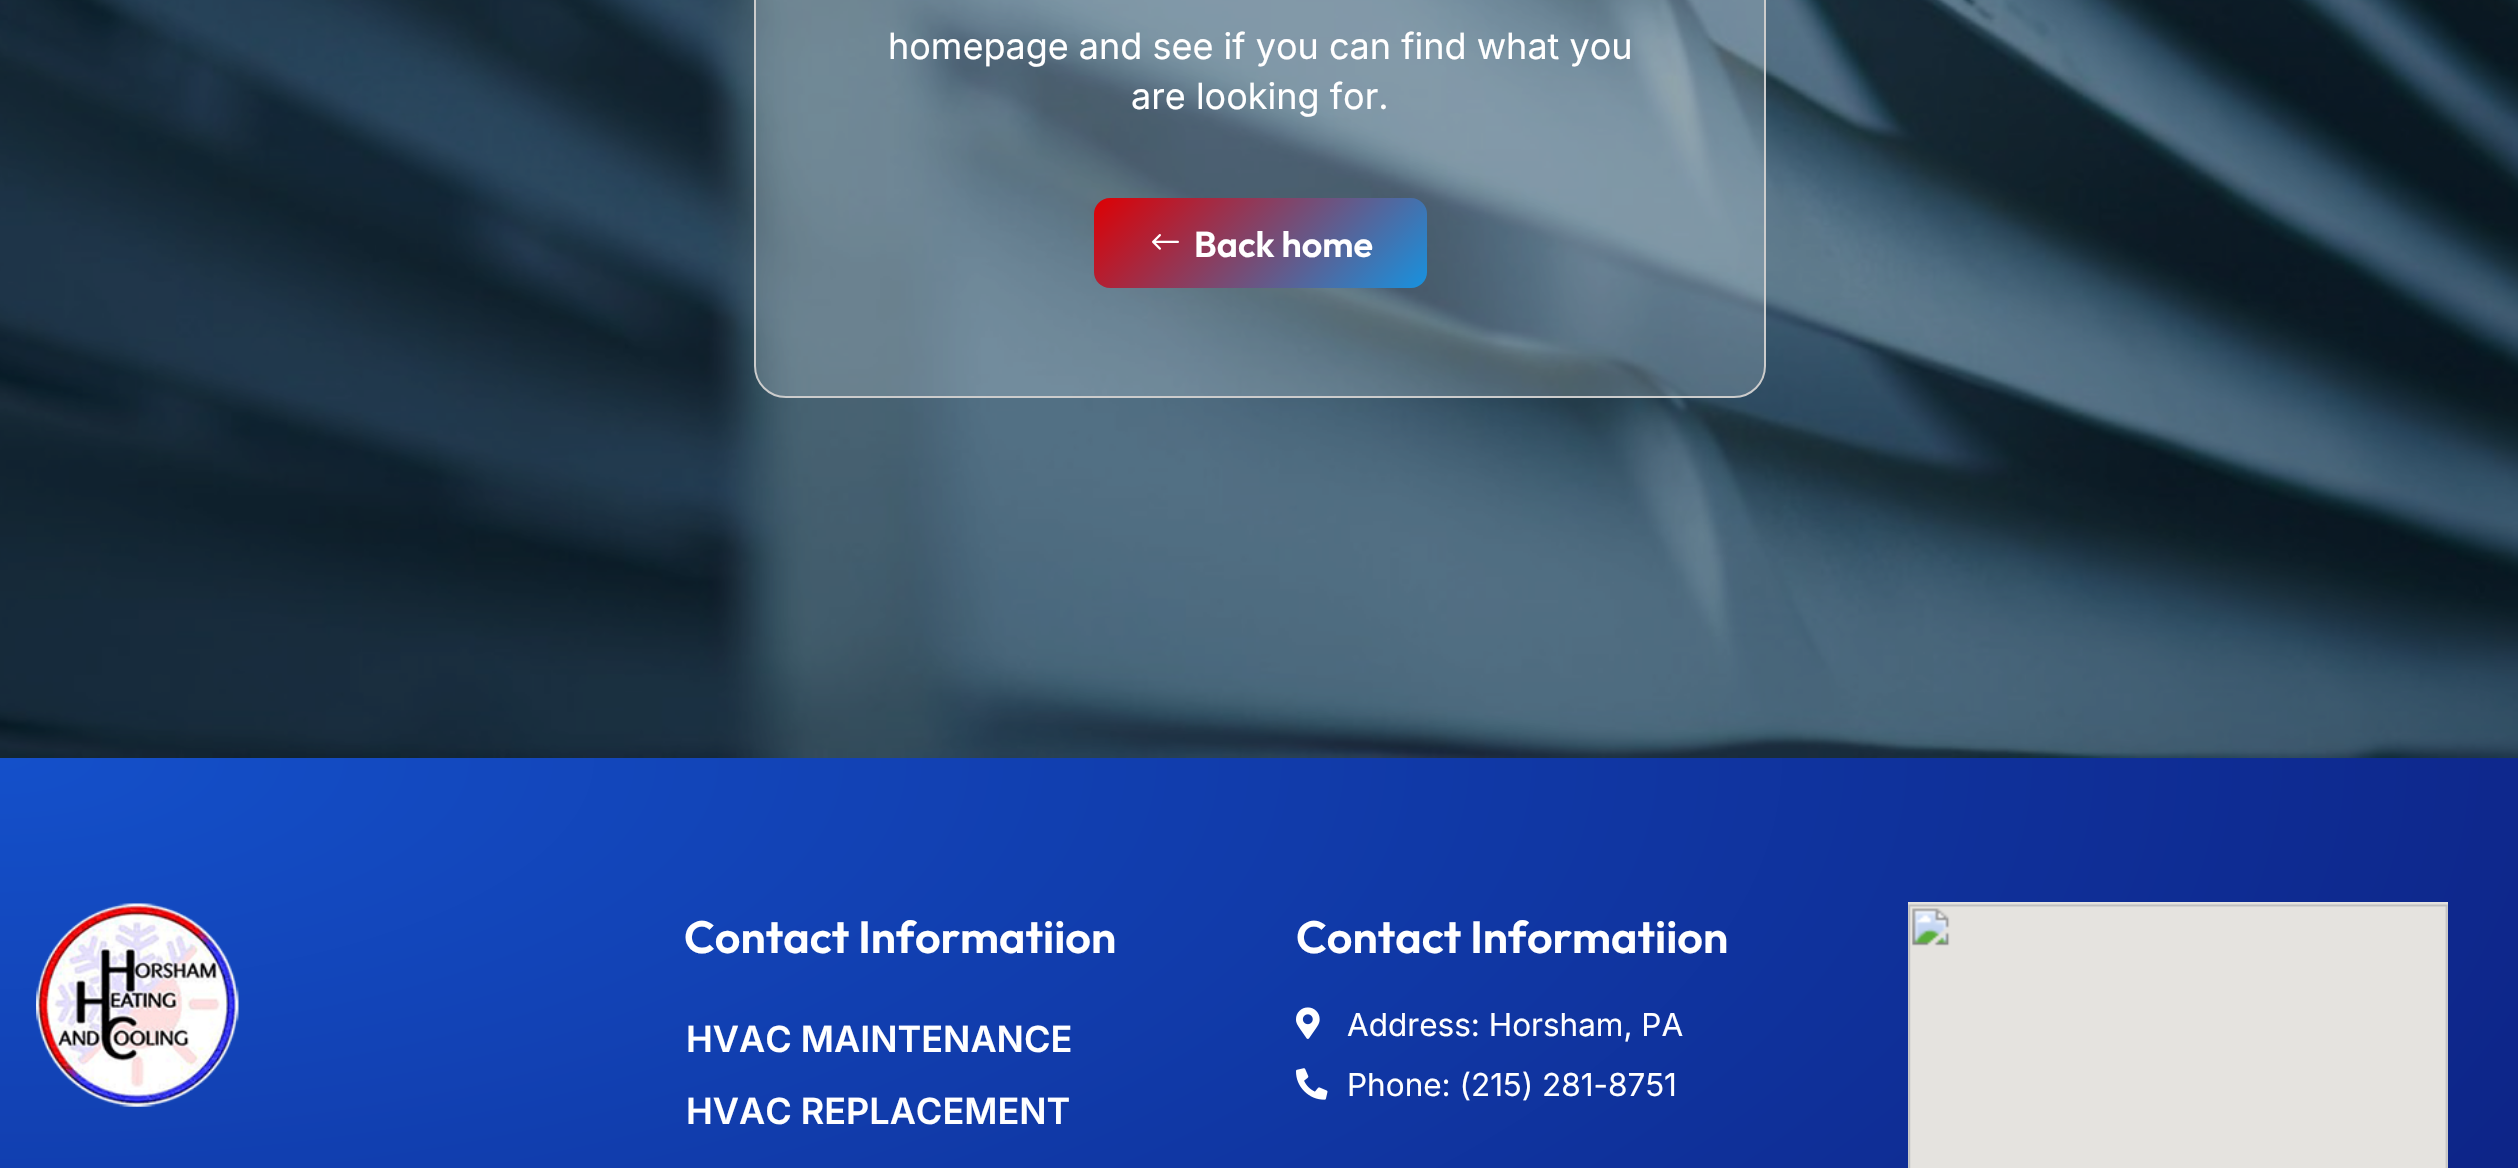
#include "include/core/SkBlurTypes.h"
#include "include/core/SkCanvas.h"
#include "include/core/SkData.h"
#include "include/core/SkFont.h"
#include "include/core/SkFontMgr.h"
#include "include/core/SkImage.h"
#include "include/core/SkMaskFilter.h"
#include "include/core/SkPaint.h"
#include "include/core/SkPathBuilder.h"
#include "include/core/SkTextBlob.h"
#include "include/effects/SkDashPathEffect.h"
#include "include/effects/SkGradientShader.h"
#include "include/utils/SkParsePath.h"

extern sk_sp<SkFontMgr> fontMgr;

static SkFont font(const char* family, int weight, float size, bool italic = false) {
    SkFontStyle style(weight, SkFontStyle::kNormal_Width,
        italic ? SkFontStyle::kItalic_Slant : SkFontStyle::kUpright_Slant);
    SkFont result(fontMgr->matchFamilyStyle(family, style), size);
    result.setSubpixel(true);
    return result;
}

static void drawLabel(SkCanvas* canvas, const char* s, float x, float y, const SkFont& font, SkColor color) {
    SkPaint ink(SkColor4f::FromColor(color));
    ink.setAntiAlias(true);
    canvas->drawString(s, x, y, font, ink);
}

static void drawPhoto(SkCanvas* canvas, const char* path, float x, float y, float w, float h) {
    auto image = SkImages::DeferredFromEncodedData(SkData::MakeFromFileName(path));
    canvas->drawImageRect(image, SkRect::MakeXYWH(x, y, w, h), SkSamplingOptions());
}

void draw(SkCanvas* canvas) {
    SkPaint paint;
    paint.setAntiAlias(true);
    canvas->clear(0xFFFFFFFF);
    drawPhoto(canvas, "assets/img1.png", 0, 0, 2518, 758);
    paint.setColor(0x33EFF8FD);
    canvas->drawRoundRect(SkRect::MakeXYWH(755, -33, 1010, 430), 31, 31, paint);
    paint.setStroke(true);
    paint.setStrokeWidth(2);
    paint.setColor(0xFFCCCCCC);
    canvas->drawRoundRect(SkRect::MakeXYWH(755, -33, 1010, 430), 31, 31, paint);
    SkFont font1 = font("Inter", 400, 36);
    drawLabel(canvas, "homepage and see if you can find what you", 888, 59, font1, 0xFFFFFFFF);
    drawLabel(canvas, "are looking for.", 1131, 109, font1, 0xFFFFFFFF);
    paint.setStroke(false);
    {
        const SkColor colors[] = {0xFFDE0003, 0xFF1792DF};
        const float stops[] = {0, 1};
        const SkPoint ends[] = {{1154, 137}, {1366, 349}};
        paint.setShader(SkGradientShader::MakeLinear(ends, colors, stops, 2, SkTileMode::kClamp));
        paint.setAlpha(255);
    }
    canvas->drawRoundRect(SkRect::MakeXYWH(1094, 198, 333, 90), 16, 16, paint);
    drawPhoto(canvas, "assets/img2.png", 1152, 234, 27, 16);
    SkFont font2 = font("Outfit", 600, 36);
    drawLabel(canvas, "Back home", 1194, 257, font2, 0xFFFFFFFF);
    {
        const SkColor colors[] = {0xFF1450CA, 0xFF0B1773};
        const float stops[] = {0, 1};
        SkMatrix m = SkMatrix::Translate(0, 758).preScale(3564, 1384);
        paint.setShader(SkGradientShader::MakeRadial({0, 0}, 1, colors, stops, 2, SkTileMode::kClamp, 0, &m));
        paint.setAlpha(255);
    }
    canvas->drawRect(SkRect::MakeXYWH(0, 758, 2518, 410), paint);
    drawPhoto(canvas, "assets/img3.png", 36, 903, 203, 204);
    SkFont font3 = font("Outfit", 600, 45);
    drawLabel(canvas, "Contact Informatiion", 684, 953, font3, 0xFFFFFFFF);
    SkFont font4 = font("Inter", 600, 36);
    drawLabel(canvas, "HVAC MAINTENANCE", 686, 1052, font4, 0xFFFFFFFF);
    drawLabel(canvas, "HVAC REPLACEMENT", 686, 1124, font4, 0xFFFFFFFF);
    drawLabel(canvas, "Contact Informatiion", 1296, 953, font3, 0xFFFFFFFF);
    drawPhoto(canvas, "assets/img4.png", 1296, 1007, 24, 32);
    SkFont font5 = font("Inter", 400, 31.5f);
    drawLabel(canvas, "Address: Horsham, PA", 1347, 1036, font5, 0xFFFFFFFF);
    drawPhoto(canvas, "assets/img5.png", 1296, 1068, 32, 32);
    drawLabel(canvas, "Phone: (215) 281-8751", 1347, 1096, font5, 0xFFFFFFFF);
    drawPhoto(canvas, "assets/img6.png", 1908, 902, 540, 266);
}
